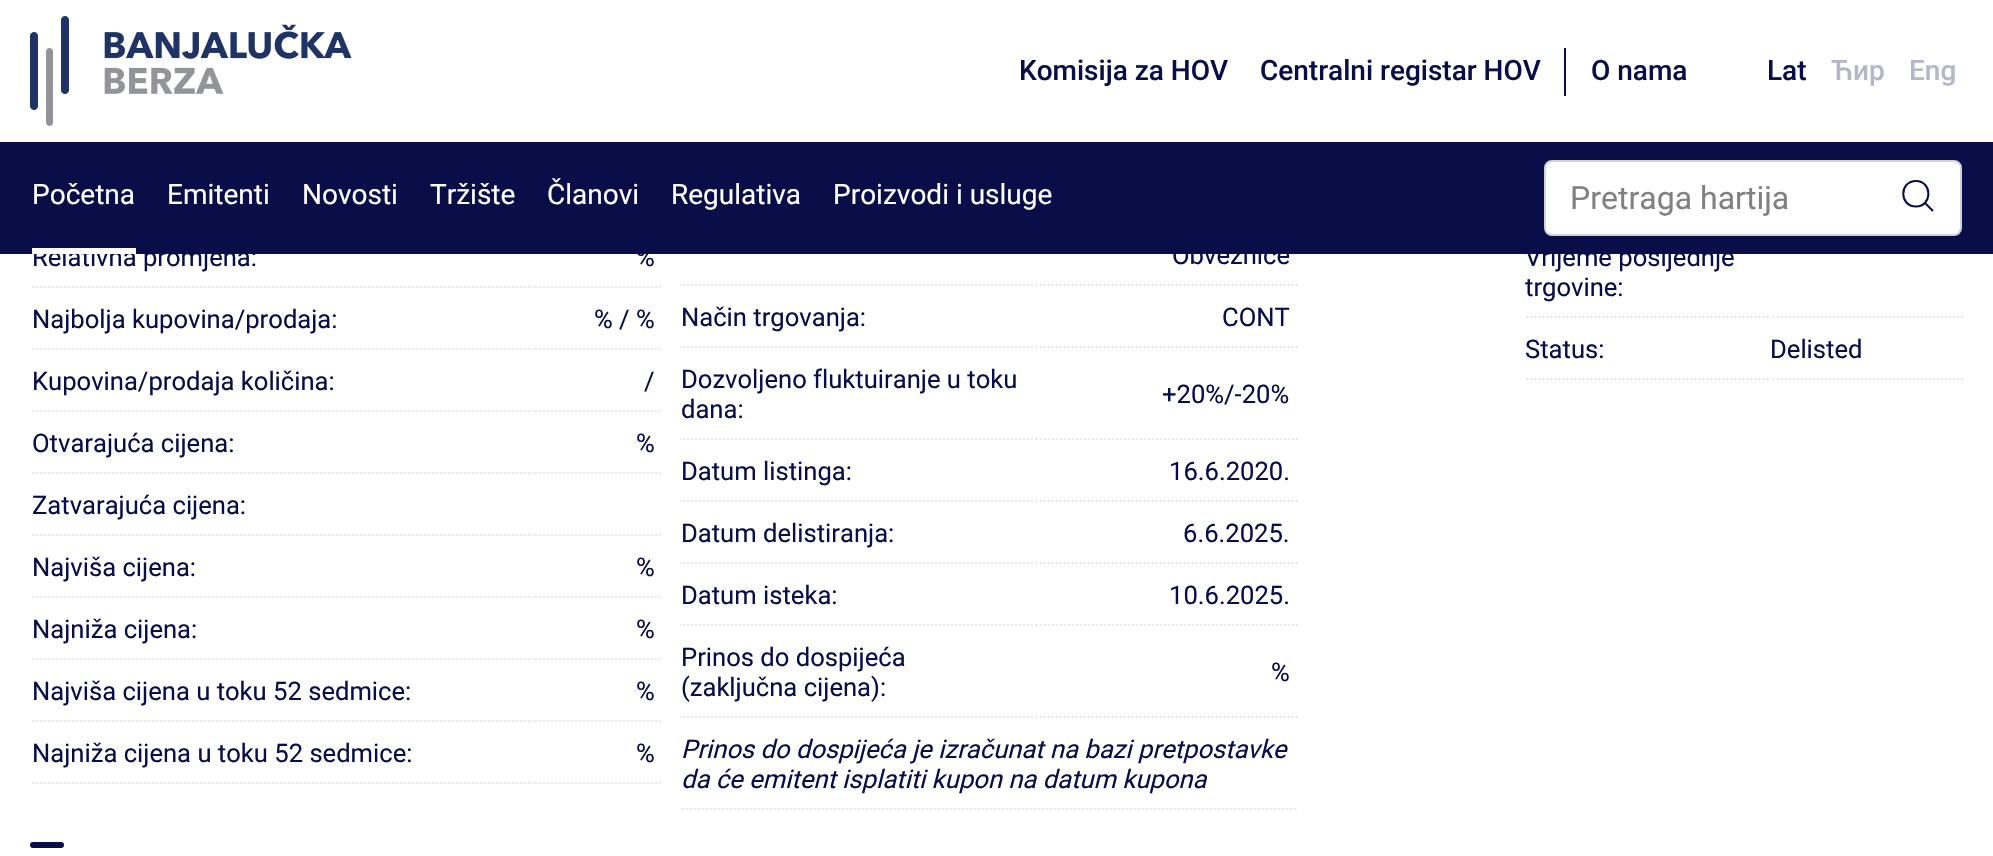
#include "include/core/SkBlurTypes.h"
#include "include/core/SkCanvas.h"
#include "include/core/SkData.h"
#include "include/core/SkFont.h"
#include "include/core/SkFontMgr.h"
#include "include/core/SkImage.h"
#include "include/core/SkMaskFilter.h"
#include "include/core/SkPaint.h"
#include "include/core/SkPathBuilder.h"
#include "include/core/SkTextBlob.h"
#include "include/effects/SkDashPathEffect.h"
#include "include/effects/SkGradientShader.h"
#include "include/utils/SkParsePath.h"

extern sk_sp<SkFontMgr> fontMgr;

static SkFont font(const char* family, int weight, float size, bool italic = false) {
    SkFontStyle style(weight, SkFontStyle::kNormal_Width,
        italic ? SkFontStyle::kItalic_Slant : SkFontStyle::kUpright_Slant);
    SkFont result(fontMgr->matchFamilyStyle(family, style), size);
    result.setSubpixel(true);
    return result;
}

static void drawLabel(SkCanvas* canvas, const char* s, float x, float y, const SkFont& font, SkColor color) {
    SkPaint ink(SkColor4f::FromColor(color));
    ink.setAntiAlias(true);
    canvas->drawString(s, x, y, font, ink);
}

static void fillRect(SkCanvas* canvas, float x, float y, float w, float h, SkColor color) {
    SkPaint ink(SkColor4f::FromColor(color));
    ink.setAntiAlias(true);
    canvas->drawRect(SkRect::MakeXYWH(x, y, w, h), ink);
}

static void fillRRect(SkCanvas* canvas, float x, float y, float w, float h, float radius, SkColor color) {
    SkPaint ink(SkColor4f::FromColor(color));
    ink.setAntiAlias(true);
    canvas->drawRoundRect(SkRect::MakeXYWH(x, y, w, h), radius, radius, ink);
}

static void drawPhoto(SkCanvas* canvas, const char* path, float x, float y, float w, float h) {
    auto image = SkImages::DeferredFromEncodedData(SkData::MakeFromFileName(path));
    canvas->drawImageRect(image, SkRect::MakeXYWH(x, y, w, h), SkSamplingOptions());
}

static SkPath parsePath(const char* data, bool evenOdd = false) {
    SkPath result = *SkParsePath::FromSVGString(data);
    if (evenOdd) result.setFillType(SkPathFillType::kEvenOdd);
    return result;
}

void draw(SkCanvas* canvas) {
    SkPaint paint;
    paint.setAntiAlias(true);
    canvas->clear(0xFFFFFFFF);
    drawPhoto(canvas, "assets/img1.png", 30, 16, 322, 110);
    SkFont font1 = font("Roboto", 500, 28);
    drawLabel(canvas, "Komisija za HOV", 1019, 80, font1, 0xFF090D48);
    drawLabel(canvas, "Centralni registar HOV", 1260, 80, font1, 0xFF090D48);
    fillRect(canvas, 1564, 48, 2, 48, 0xFF090D48);
    drawLabel(canvas, "O nama", 1591, 80, font1, 0xFF090D48);
    drawLabel(canvas, "Lat", 1767, 80, font1, 0xFF090D48);
    drawLabel(canvas, "Ћир", 1831, 80, font1, 0xFFB5B6C8);
    drawLabel(canvas, "Eng", 1909, 80, font1, 0xFFB5B6C8);
    fillRect(canvas, 0, 142, 1993, 112, 0xFF090D48);
    SkFont font2 = font("Roboto", 400, 25.6f);
    drawLabel(canvas, "Relativna promjena:", 32, 266, font2, 0xFF090D48);
    fillRect(canvas, 32, 248, 104, 6, 0xFFFFFFFF);
    SkFont font3 = font("Roboto", 400, 28);
    drawLabel(canvas, "Početna", 32, 204, font3, 0xFFFFFFFF);
    drawLabel(canvas, "Emitenti", 167, 204, font3, 0xFFFFFFFF);
    drawLabel(canvas, "Novosti", 302, 204, font3, 0xFFFFFFFF);
    drawLabel(canvas, "Tržište", 430, 204, font3, 0xFFFFFFFF);
    drawLabel(canvas, "Članovi", 547, 204, font3, 0xFFFFFFFF);
    drawLabel(canvas, "Regulativa", 671, 204, font3, 0xFFFFFFFF);
    drawLabel(canvas, "Proizvodi i usluge", 833, 204, font3, 0xFFFFFFFF);
    paint.setColor(0xFFFFFFFF);
    canvas->drawRoundRect(SkRect::MakeXYWH(1545, 161, 416, 74), 7, 7, paint);
    paint.setStroke(true);
    paint.setStrokeWidth(2);
    paint.setColor(0xFFCED4DA);
    canvas->drawRoundRect(SkRect::MakeXYWH(1545, 161, 416, 74), 7, 7, paint);
    SkFont font4 = font("Roboto", 400, 32);
    drawLabel(canvas, "Pretraga hartija", 1570, 209, font4, 0xFF808080);
    paint.setColor(0xFF090D48);
    canvas->drawPath(parsePath("M1933 211L1924.5 202.5M1916 206.5C1899 206.5 1899 181 1916 181C1932.5 181 1932.5 206.5 1916 206.5Z"), paint);
    drawPhoto(canvas, "assets/img2.png", 32, 286, 499, 2);
    drawPhoto(canvas, "assets/img3.png", 532, 286, 130, 2);
    drawLabel(canvas, "%", 636, 266, font2, 0xFF090D48);
    drawPhoto(canvas, "assets/img2.png", 32, 348, 499, 2);
    drawLabel(canvas, "Najbolja kupovina/prodaja:", 32, 328, font2, 0xFF090D48);
    drawPhoto(canvas, "assets/img3.png", 532, 348, 130, 2);
    drawLabel(canvas, "% / %", 594, 328, font2, 0xFF090D48);
    drawPhoto(canvas, "assets/img2.png", 32, 410, 499, 2);
    drawLabel(canvas, "Kupovina/prodaja količina:", 32, 390, font2, 0xFF090D48);
    drawPhoto(canvas, "assets/img3.png", 532, 410, 130, 2);
    drawLabel(canvas, "/", 644, 390, font2, 0xFF090D48);
    drawPhoto(canvas, "assets/img2.png", 32, 472, 499, 2);
    drawLabel(canvas, "Otvarajuća cijena:", 32, 452, font2, 0xFF090D48);
    drawPhoto(canvas, "assets/img3.png", 532, 472, 130, 2);
    drawLabel(canvas, "%", 636, 452, font2, 0xFF090D48);
    drawPhoto(canvas, "assets/img2.png", 32, 534, 499, 2);
    drawLabel(canvas, "Zatvarajuća cijena:", 32, 514, font2, 0xFF090D48);
    drawPhoto(canvas, "assets/img3.png", 532, 534, 130, 2);
    drawPhoto(canvas, "assets/img2.png", 32, 596, 499, 2);
    drawLabel(canvas, "Najviša cijena:", 32, 576, font2, 0xFF090D48);
    drawPhoto(canvas, "assets/img3.png", 532, 596, 130, 2);
    drawLabel(canvas, "%", 636, 576, font2, 0xFF090D48);
    drawPhoto(canvas, "assets/img2.png", 32, 658, 499, 2);
    drawLabel(canvas, "Najniža cijena:", 32, 638, font2, 0xFF090D48);
    drawPhoto(canvas, "assets/img3.png", 532, 658, 130, 2);
    drawLabel(canvas, "%", 636, 638, font2, 0xFF090D48);
    drawPhoto(canvas, "assets/img2.png", 32, 720, 499, 2);
    drawLabel(canvas, "Najviša cijena u toku 52 sedmice:", 32, 700, font2, 0xFF090D48);
    drawPhoto(canvas, "assets/img3.png", 532, 720, 130, 2);
    drawLabel(canvas, "%", 636, 700, font2, 0xFF090D48);
    drawPhoto(canvas, "assets/img2.png", 32, 782, 499, 2);
    drawLabel(canvas, "Najniža cijena u toku 52 sedmice:", 32, 762, font2, 0xFF090D48);
    drawPhoto(canvas, "assets/img3.png", 532, 782, 130, 2);
    drawLabel(canvas, "%", 636, 762, font2, 0xFF090D48);
    drawPhoto(canvas, "assets/img4.png", 1035, 284, 263, 2);
    drawLabel(canvas, "Obveznice", 1172, 264, font2, 0xFF090D48);
    drawPhoto(canvas, "assets/img5.png", 680, 284, 353, 2);
    drawPhoto(canvas, "assets/img5.png", 680, 346, 353, 2);
    drawLabel(canvas, "Način trgovanja:", 681, 326, font2, 0xFF090D48);
    drawPhoto(canvas, "assets/img4.png", 1035, 346, 263, 2);
    drawLabel(canvas, "CONT", 1222, 326, font2, 0xFF090D48);
    drawPhoto(canvas, "assets/img5.png", 680, 438, 353, 2);
    drawLabel(canvas, "Dozvoljeno fluktuiranje u toku", 681, 388, font2, 0xFF090D48);
    drawLabel(canvas, "dana:", 681, 418, font2, 0xFF090D48);
    drawPhoto(canvas, "assets/img4.png", 1035, 438, 263, 2);
    drawLabel(canvas, "+20%/-20%", 1162, 403, font2, 0xFF090D48);
    drawPhoto(canvas, "assets/img5.png", 680, 500, 353, 2);
    drawLabel(canvas, "Datum listinga:", 681, 480, font2, 0xFF090D48);
    drawPhoto(canvas, "assets/img4.png", 1035, 500, 263, 2);
    drawLabel(canvas, "16.6.2020.", 1169, 480, font2, 0xFF090D48);
    drawPhoto(canvas, "assets/img5.png", 680, 562, 353, 2);
    drawLabel(canvas, "Datum delistiranja:", 681, 542, font2, 0xFF090D48);
    drawPhoto(canvas, "assets/img4.png", 1035, 562, 263, 2);
    drawLabel(canvas, "6.6.2025.", 1183, 542, font2, 0xFF090D48);
    drawPhoto(canvas, "assets/img5.png", 680, 624, 353, 2);
    drawLabel(canvas, "Datum isteka:", 681, 604, font2, 0xFF090D48);
    drawPhoto(canvas, "assets/img4.png", 1035, 624, 263, 2);
    drawLabel(canvas, "10.6.2025.", 1169, 604, font2, 0xFF090D48);
    drawPhoto(canvas, "assets/img5.png", 680, 716, 353, 2);
    drawLabel(canvas, "Prinos do dospijeća", 681, 666, font2, 0xFF090D48);
    drawLabel(canvas, "(zaključna cijena):", 681, 696, font2, 0xFF090D48);
    drawPhoto(canvas, "assets/img4.png", 1035, 716, 263, 2);
    drawLabel(canvas, "%", 1271, 681, font2, 0xFF090D48);
    drawPhoto(canvas, "assets/img6.png", 680, 808, 617, 2);
    SkFont font5 = font("Roboto", 400, 25.6f, true);
    drawLabel(canvas, "Prinos do dospijeća je izračunat na bazi pretpostavke", 681, 758, font5, 0xFF090D48);
    drawLabel(canvas, "da će emitent isplatiti kupon na datum kupona", 681, 788, font5, 0xFF090D48);
    drawPhoto(canvas, "assets/img7.png", 1526, 316, 243, 2);
    drawLabel(canvas, "Vrijeme posljednje", 1525, 266, font2, 0xFF090D48);
    drawLabel(canvas, "trgovine:", 1525, 296, font2, 0xFF090D48);
    drawPhoto(canvas, "assets/img8.png", 1770, 316, 193, 2);
    drawPhoto(canvas, "assets/img7.png", 1526, 378, 243, 2);
    drawLabel(canvas, "Status:", 1525, 358, font2, 0xFF090D48);
    drawPhoto(canvas, "assets/img8.png", 1770, 378, 193, 2);
    drawLabel(canvas, "Delisted", 1770, 358, font2, 0xFF090D48);
    fillRRect(canvas, 30, 842, 34, 6, 3, 0xFF090D48);
}
